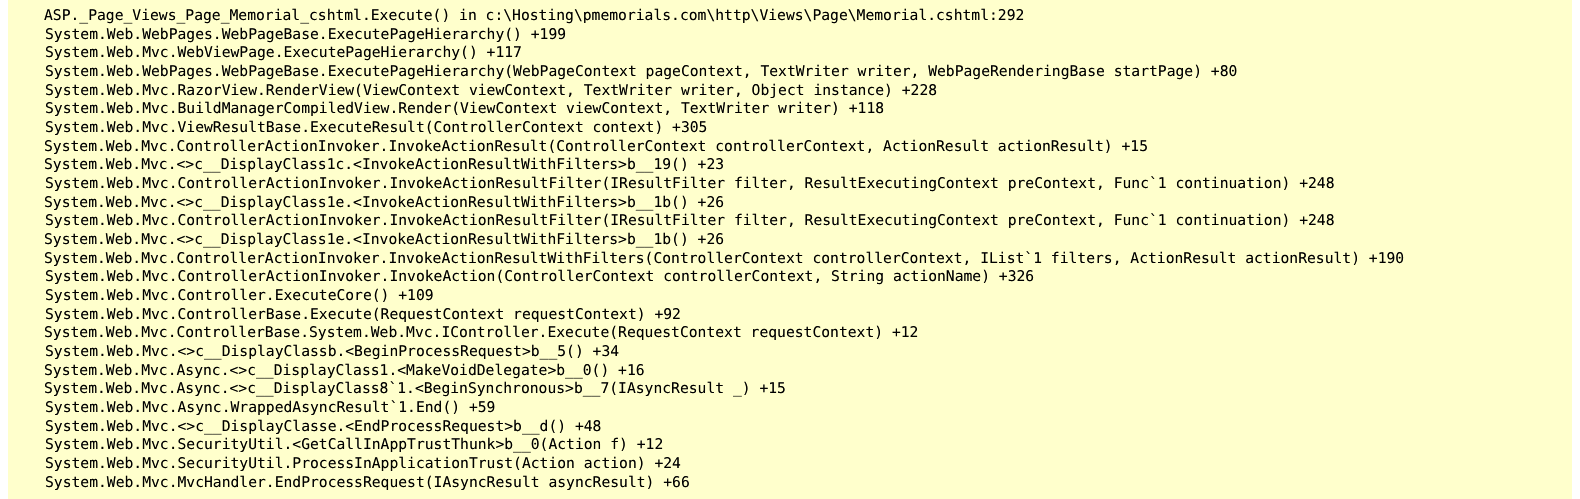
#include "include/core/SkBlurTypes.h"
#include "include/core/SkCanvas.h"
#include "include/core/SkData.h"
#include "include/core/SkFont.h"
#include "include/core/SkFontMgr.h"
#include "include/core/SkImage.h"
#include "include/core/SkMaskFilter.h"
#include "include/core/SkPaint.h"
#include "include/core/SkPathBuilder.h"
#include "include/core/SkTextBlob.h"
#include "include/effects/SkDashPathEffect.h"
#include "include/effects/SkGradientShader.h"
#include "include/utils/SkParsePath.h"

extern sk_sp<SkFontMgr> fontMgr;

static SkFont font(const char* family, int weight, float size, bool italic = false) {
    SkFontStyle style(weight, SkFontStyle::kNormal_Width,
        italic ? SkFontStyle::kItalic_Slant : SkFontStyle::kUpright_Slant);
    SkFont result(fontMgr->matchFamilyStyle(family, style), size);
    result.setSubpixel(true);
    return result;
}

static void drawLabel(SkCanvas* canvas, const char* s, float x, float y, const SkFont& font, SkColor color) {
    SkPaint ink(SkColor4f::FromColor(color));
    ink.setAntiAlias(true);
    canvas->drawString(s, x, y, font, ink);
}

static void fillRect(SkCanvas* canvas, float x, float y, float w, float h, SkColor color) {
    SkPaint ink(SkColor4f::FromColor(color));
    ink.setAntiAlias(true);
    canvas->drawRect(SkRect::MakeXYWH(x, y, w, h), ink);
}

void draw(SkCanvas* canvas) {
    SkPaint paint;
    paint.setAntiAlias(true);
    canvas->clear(0xFFFFFFFF);
    fillRect(canvas, 8, 0, 1564, 499, 0xFFFFFFCC);
    SkFont font1 = font("DejaVu Sans Mono", 400, 14.67f);
    drawLabel(canvas, "ASP._Page_Views_Page_Memorial_cshtml.Execute() in c:\\Hosting\\pmemorials.com\\http\\Views\\Page\\Memorial.cshtml:292", 44, 20, font1, 0xFF000000);
    drawLabel(canvas, "System.Web.WebPages.WebPageBase.ExecutePageHierarchy() +199", 45, 39, font1, 0xFF000000);
    drawLabel(canvas, "System.Web.Mvc.WebViewPage.ExecutePageHierarchy() +117", 45, 57, font1, 0xFF000000);
    drawLabel(canvas, "System.Web.WebPages.WebPageBase.ExecutePageHierarchy(WebPageContext pageContext, TextWriter writer, WebPageRenderingBase startPage) +80", 45, 76, font1, 0xFF000000);
    drawLabel(canvas, "System.Web.Mvc.RazorView.RenderView(ViewContext viewContext, TextWriter writer, Object instance) +228", 45, 95, font1, 0xFF000000);
    drawLabel(canvas, "System.Web.Mvc.BuildManagerCompiledView.Render(ViewContext viewContext, TextWriter writer) +118", 45, 113, font1, 0xFF000000);
    drawLabel(canvas, "System.Web.Mvc.ViewResultBase.ExecuteResult(ControllerContext context) +305", 45, 132, font1, 0xFF000000);
    drawLabel(canvas, "System.Web.Mvc.ControllerActionInvoker.InvokeActionResult(ControllerContext controllerContext, ActionResult actionResult) +15", 44, 151, font1, 0xFF000000);
    drawLabel(canvas, "System.Web.Mvc.<>c__DisplayClass1c.<InvokeActionResultWithFilters>b__19() +23", 44, 169, font1, 0xFF000000);
    drawLabel(canvas, "System.Web.Mvc.ControllerActionInvoker.InvokeActionResultFilter(IResultFilter filter, ResultExecutingContext preContext, Func`1 continuation) +248", 45, 188, font1, 0xFF000000);
    drawLabel(canvas, "System.Web.Mvc.<>c__DisplayClass1e.<InvokeActionResultWithFilters>b__1b() +26", 44, 207, font1, 0xFF000000);
    drawLabel(canvas, "System.Web.Mvc.ControllerActionInvoker.InvokeActionResultFilter(IResultFilter filter, ResultExecutingContext preContext, Func`1 continuation) +248", 45, 225, font1, 0xFF000000);
    drawLabel(canvas, "System.Web.Mvc.<>c__DisplayClass1e.<InvokeActionResultWithFilters>b__1b() +26", 44, 244, font1, 0xFF000000);
    drawLabel(canvas, "System.Web.Mvc.ControllerActionInvoker.InvokeActionResultWithFilters(ControllerContext controllerContext, IList`1 filters, ActionResult actionResult) +190", 44, 263, font1, 0xFF000000);
    drawLabel(canvas, "System.Web.Mvc.ControllerActionInvoker.InvokeAction(ControllerContext controllerContext, String actionName) +326", 45, 281, font1, 0xFF000000);
    drawLabel(canvas, "System.Web.Mvc.Controller.ExecuteCore() +109", 45, 300, font1, 0xFF000000);
    drawLabel(canvas, "System.Web.Mvc.ControllerBase.Execute(RequestContext requestContext) +92", 45, 319, font1, 0xFF000000);
    drawLabel(canvas, "System.Web.Mvc.ControllerBase.System.Web.Mvc.IController.Execute(RequestContext requestContext) +12", 44, 337, font1, 0xFF000000);
    drawLabel(canvas, "System.Web.Mvc.<>c__DisplayClassb.<BeginProcessRequest>b__5() +34", 45, 356, font1, 0xFF000000);
    drawLabel(canvas, "System.Web.Mvc.Async.<>c__DisplayClass1.<MakeVoidDelegate>b__0() +16", 44, 375, font1, 0xFF000000);
    drawLabel(canvas, "System.Web.Mvc.Async.<>c__DisplayClass8`1.<BeginSynchronous>b__7(IAsyncResult _) +15", 44, 393, font1, 0xFF000000);
    drawLabel(canvas, "System.Web.Mvc.Async.WrappedAsyncResult`1.End() +59", 45, 412, font1, 0xFF000000);
    drawLabel(canvas, "System.Web.Mvc.<>c__DisplayClasse.<EndProcessRequest>b__d() +48", 45, 431, font1, 0xFF000000);
    drawLabel(canvas, "System.Web.Mvc.SecurityUtil.<GetCallInAppTrustThunk>b__0(Action f) +12", 45, 449, font1, 0xFF000000);
    drawLabel(canvas, "System.Web.Mvc.SecurityUtil.ProcessInApplicationTrust(Action action) +24", 45, 468, font1, 0xFF000000);
    drawLabel(canvas, "System.Web.Mvc.MvcHandler.EndProcessRequest(IAsyncResult asyncResult) +66", 45, 487, font1, 0xFF000000);
}
